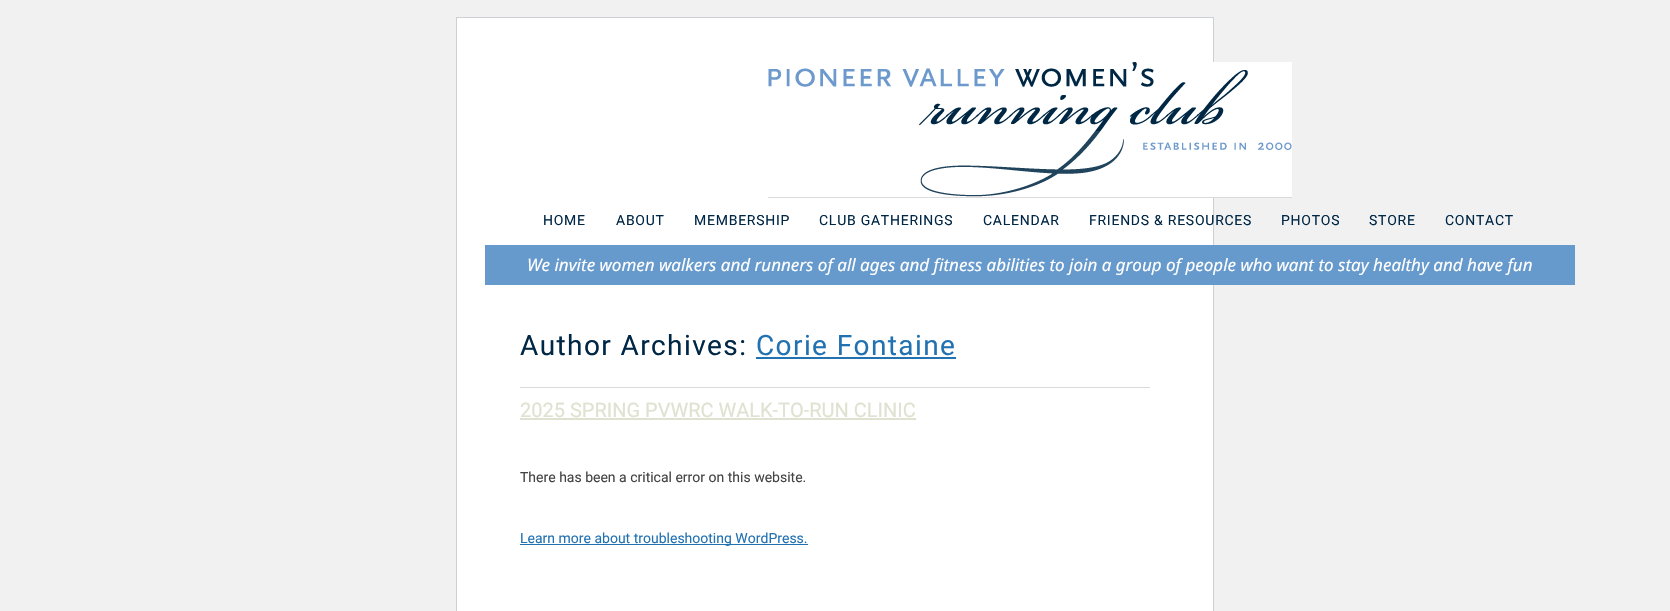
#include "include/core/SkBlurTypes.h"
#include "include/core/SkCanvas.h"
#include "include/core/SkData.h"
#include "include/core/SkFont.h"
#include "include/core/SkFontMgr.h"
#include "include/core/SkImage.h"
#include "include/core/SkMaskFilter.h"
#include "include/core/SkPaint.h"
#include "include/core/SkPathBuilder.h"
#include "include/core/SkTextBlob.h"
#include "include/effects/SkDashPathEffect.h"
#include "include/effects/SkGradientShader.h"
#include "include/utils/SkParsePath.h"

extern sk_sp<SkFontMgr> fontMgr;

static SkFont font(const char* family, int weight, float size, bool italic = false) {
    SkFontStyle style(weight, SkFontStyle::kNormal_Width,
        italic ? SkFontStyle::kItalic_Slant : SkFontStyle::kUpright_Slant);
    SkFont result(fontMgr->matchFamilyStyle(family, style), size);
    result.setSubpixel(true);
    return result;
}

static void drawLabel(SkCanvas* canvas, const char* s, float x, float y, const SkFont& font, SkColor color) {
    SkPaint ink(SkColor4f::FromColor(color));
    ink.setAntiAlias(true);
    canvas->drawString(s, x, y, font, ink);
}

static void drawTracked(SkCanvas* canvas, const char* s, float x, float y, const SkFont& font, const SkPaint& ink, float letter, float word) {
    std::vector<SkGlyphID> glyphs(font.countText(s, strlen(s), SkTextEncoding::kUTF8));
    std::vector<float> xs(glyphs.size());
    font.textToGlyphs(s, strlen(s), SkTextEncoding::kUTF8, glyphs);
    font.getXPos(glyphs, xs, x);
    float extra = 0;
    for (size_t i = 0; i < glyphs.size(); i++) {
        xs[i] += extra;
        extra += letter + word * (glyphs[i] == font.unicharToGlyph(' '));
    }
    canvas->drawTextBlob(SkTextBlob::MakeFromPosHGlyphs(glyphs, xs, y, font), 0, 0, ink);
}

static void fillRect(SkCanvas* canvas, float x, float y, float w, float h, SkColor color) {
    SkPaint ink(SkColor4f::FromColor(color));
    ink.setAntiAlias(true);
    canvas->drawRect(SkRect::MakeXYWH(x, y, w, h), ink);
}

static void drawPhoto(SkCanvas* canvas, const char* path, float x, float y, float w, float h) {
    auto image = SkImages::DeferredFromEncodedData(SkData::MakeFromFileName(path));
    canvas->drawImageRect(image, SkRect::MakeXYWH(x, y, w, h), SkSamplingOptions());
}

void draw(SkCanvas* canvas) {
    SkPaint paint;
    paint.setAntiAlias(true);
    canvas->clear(0xFFF1F1F1);
    paint.setColor(0xFFFFFFFF);
    canvas->drawRect(SkRect::MakeXYWH(456.5f, 17.5f, 757, 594), paint);
    paint.setStroke(true);
    paint.setStrokeWidth(1);
    paint.setColor(0xFFCCD0D4);
    canvas->drawRect(SkRect::MakeXYWH(456.5f, 17.5f, 757, 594), paint);
    fillRect(canvas, 768, 197, 524, 1, 0xFFDADADA);
    drawPhoto(canvas, "assets/img1.png", 768, 62, 524, 135);
    SkFont font1 = font("Roboto", 400, 14);
    paint.setStroke(false);
    paint.setColor(0xFF002745);
    drawTracked(canvas, "HOME", 543, 225, font1, paint, 0.75f, 0);
    drawTracked(canvas, "ABOUT", 616, 225, font1, paint, 0.75f, 0);
    drawTracked(canvas, "MEMBERSHIP", 694, 225, font1, paint, 0.75f, 0);
    drawTracked(canvas, "CLUB GATHERINGS", 819, 225, font1, paint, 0.75f, 0);
    drawTracked(canvas, "CALENDAR", 983, 225, font1, paint, 0.75f, 0);
    drawTracked(canvas, "FRIENDS & RESOURCES", 1089, 225, font1, paint, 0.75f, 0);
    drawTracked(canvas, "PHOTOS", 1281, 225, font1, paint, 0.75f, 0);
    drawTracked(canvas, "STORE", 1369, 225, font1, paint, 0.75f, 0);
    drawTracked(canvas, "CONTACT", 1445, 225, font1, paint, 0.75f, 0);
    fillRect(canvas, 485, 245, 1090, 40, 0xFF6699CC);
    SkFont font2 = font("Noto Sans", 400, 17, true);
    drawLabel(canvas, "We invite women walkers and runners of all ages and fitness abilities to join a group of people who want to stay healthy and have fun", 527, 271, font2, 0xFFFFFFFF);
    fillRect(canvas, 520, 387, 630, 1, 0xFFDADADA);
    SkFont font3 = font("Roboto", 400, 28);
    drawTracked(canvas, "Author Archives:", 520, 355, font3, paint, 1.4f, 0);
    paint.setColor(0xFF2271B1);
    drawTracked(canvas, "Corie Fontaine", 756, 355, font3, paint, 1.4f, 0);
    fillRect(canvas, 756, 357, 200, 2, 0xFF2271B1);
    SkFont font4 = font("Roboto", 400, 20);
    drawLabel(canvas, "2025 SPRING PVWRC WALK-TO-RUN CLINIC", 520, 417, font4, 0xFFDFE2D1);
    fillRect(canvas, 520, 418, 396, 2, 0xFFDFE2D1);
    drawLabel(canvas, "There has been a critical error on this website.", 520, 482, font1, 0xFF444444);
    fillRect(canvas, 520, 544, 288, 1, 0xFF2271B1);
    drawLabel(canvas, "Learn more about troubleshooting WordPress.", 520, 543, font1, 0xFF2271B1);
}
